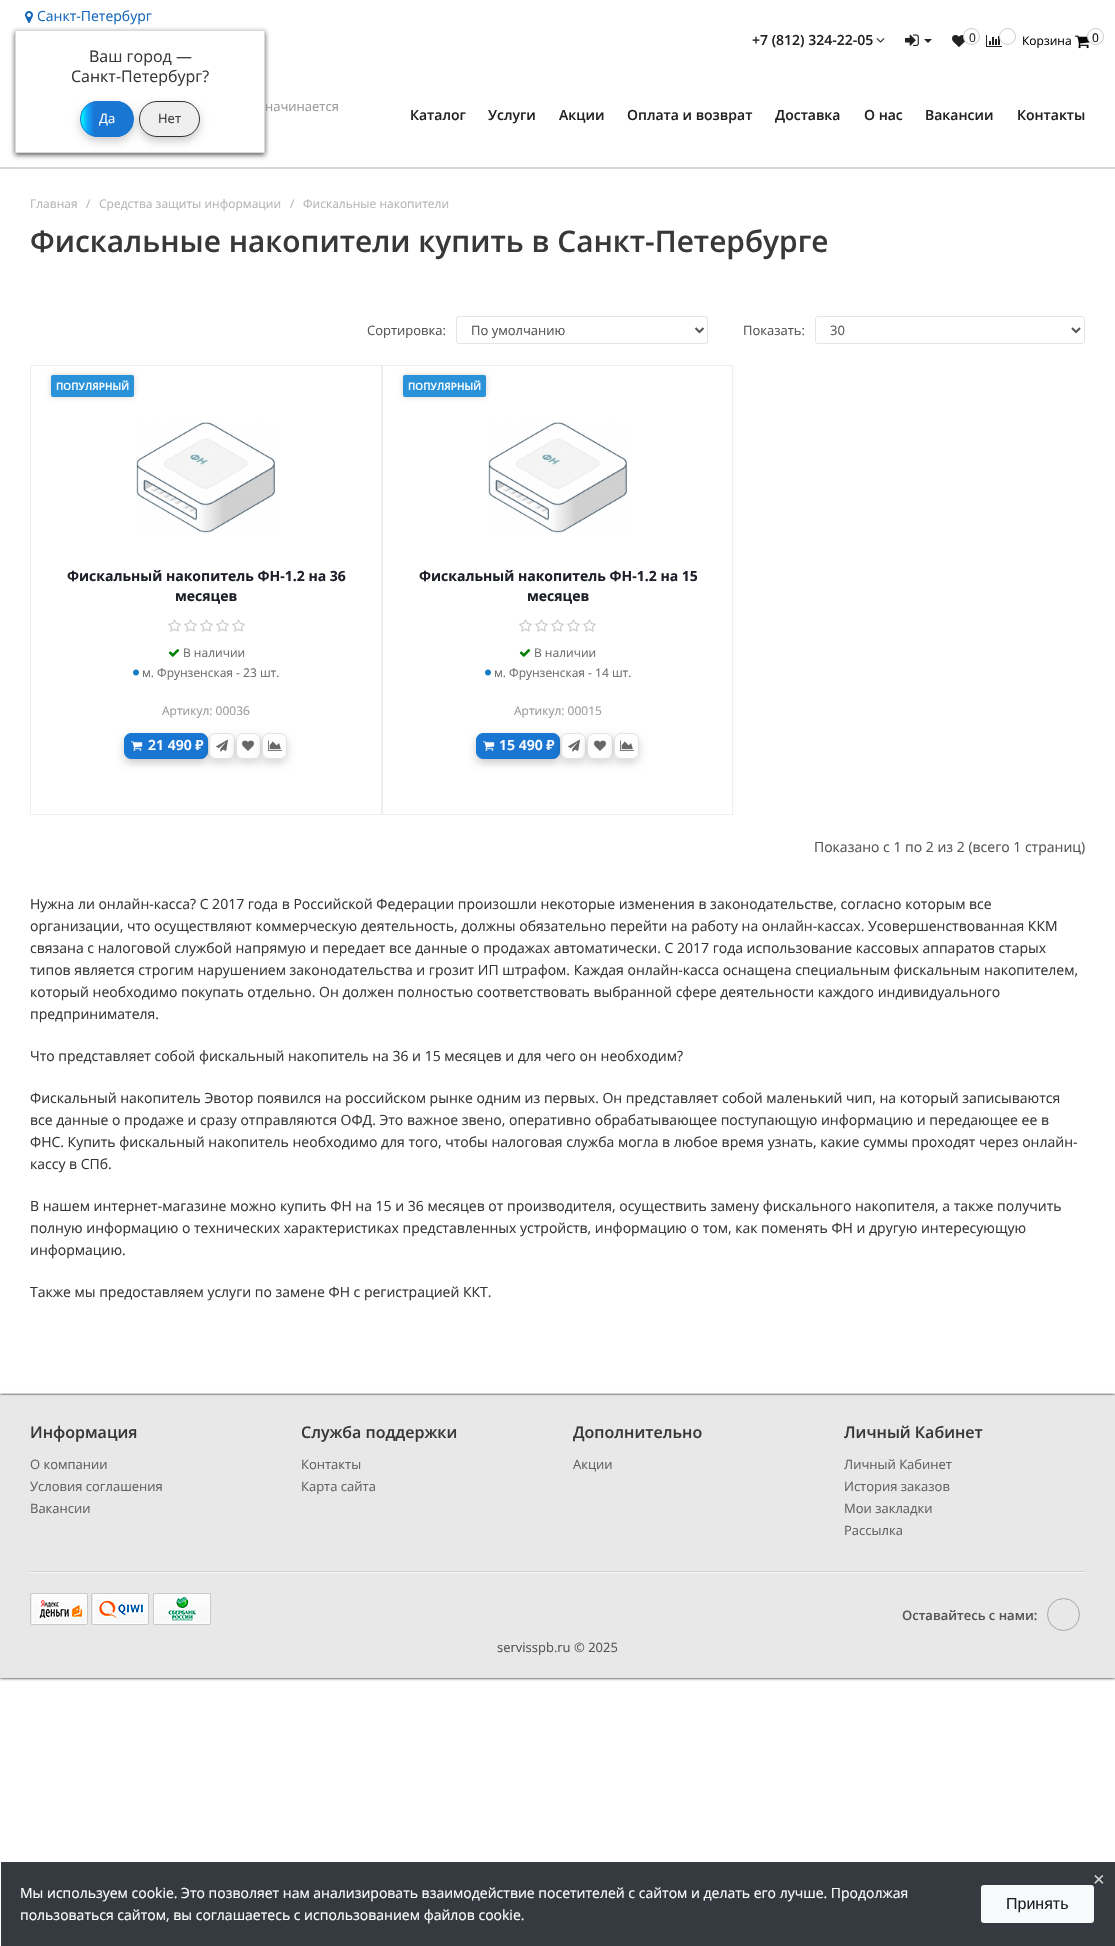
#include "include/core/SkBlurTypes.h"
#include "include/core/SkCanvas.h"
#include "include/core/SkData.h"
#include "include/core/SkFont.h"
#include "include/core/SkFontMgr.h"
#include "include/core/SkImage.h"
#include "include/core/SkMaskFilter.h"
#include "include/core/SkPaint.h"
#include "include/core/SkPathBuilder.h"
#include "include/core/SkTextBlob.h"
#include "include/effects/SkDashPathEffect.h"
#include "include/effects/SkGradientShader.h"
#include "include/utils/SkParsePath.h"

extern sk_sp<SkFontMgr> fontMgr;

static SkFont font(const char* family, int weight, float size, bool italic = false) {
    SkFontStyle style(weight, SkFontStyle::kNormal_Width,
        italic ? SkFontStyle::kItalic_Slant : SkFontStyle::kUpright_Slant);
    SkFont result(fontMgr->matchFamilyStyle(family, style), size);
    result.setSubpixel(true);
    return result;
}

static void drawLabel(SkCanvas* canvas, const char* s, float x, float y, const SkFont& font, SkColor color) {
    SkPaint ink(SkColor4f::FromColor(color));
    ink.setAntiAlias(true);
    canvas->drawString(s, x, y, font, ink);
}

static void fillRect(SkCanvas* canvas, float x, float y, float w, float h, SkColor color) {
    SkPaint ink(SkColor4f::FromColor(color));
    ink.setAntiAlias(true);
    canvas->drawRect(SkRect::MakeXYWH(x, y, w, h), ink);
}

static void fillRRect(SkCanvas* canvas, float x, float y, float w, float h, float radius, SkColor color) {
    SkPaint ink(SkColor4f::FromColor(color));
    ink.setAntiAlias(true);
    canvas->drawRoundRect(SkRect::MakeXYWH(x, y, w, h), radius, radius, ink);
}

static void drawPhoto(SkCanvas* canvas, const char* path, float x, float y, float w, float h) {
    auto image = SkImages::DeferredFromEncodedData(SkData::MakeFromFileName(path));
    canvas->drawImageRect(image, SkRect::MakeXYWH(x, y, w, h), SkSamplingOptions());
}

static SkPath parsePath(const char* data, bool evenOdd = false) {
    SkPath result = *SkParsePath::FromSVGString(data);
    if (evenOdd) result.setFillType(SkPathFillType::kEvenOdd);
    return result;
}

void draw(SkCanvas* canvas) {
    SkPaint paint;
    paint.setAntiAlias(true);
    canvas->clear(0xFFFFFFFF);
    drawPhoto(canvas, "assets/img1.png", 25, 11, 8, 12);
    SkFont font1 = font("Open Sans", 400, 14);
    drawLabel(canvas, "Санкт-Петербург", 37, 21, font1, 0xFF1569BC);
    paint.setColor(0xFF5B5A5A);
    paint.setMaskFilter(SkMaskFilter::MakeBlur(kNormal_SkBlurStyle, 2.5f));
    canvas->drawRect(SkRect::MakeXYWH(15, 32, 250, 123), paint);
    paint.setMaskFilter(nullptr);
    paint.setColor(0xFFFFFFFF);
    canvas->drawRect(SkRect::MakeXYWH(15.5f, 30.5f, 249, 122), paint);
    paint.setStroke(true);
    paint.setStrokeWidth(1);
    paint.setColor(0xFFDADADA);
    canvas->drawRect(SkRect::MakeXYWH(15.5f, 30.5f, 249, 122), paint);
    SkFont font2 = font("Open Sans", 400, 16);
    drawLabel(canvas, "Ваш город —", 89, 62, font2, 0xFF383838);
    drawLabel(canvas, "Санкт-Петербург?", 71, 82, font2, 0xFF383838);
    paint.setStroke(false);
    paint.setColor(0x33000000);
    paint.setMaskFilter(SkMaskFilter::MakeBlur(kNormal_SkBlurStyle, 4));
    canvas->drawRoundRect(SkRect::MakeXYWH(80, 105, 54, 36), 18, 18, paint);
    paint.setMaskFilter(nullptr);
    canvas->save();
    canvas->clipPath(parsePath("M98 101H116C126 101 134 109 134 119C134 129 126 137 116 137H98C88 137 80 129 80 119C80 109 88 101 98 101Z"), true);
    {
        const SkColor colors[] = {0xFF1976D2, 0xFF10A7FF, 0xFF00FFF8};
        const float stops[] = {0.75f, 0.88f, 1};
        const SkPoint ends[] = {{133, 119}, {81, 119}};
        paint.setShader(SkGradientShader::MakeLinear(ends, colors, stops, 3, SkTileMode::kClamp));
        paint.setAlpha(255);
    }
    canvas->drawRect(SkRect::MakeXYWH(81, 101, 52, 36), paint);
    canvas->restore();
    paint.setStroke(true);
    paint.setShader(nullptr);
    paint.setColor(0xFF1976D2);
    canvas->drawRoundRect(SkRect::MakeXYWH(80.5f, 101.5f, 53, 35), 17.5f, 17.5f, paint);
    SkFont font3 = font("Open Sans", 400, 13);
    drawLabel(canvas, "Да", 99, 123, font3, 0xFFFFFFFF);
    paint.setStroke(false);
    paint.setColor(0x33000000);
    paint.setMaskFilter(SkMaskFilter::MakeBlur(kNormal_SkBlurStyle, 4));
    canvas->drawRoundRect(SkRect::MakeXYWH(139, 105, 61, 36), 18, 18, paint);
    paint.setMaskFilter(nullptr);
    paint.setColor(0xFFEFEFEF);
    canvas->drawRoundRect(SkRect::MakeXYWH(139.5f, 101.5f, 60, 35), 17.5f, 17.5f, paint);
    paint.setStroke(true);
    paint.setColor(0xFF333333);
    canvas->drawRoundRect(SkRect::MakeXYWH(139.5f, 101.5f, 60, 35), 17.5f, 17.5f, paint);
    drawLabel(canvas, "Нет", 158, 123, font3, 0xFF383838);
    SkFont font4 = font("Open Sans", 600, 14);
    drawLabel(canvas, "+7 (812) 324-22-05", 752, 45, font4, 0xFF222222);
    drawPhoto(canvas, "assets/img2.png", 876, 38, 9, 5);
    drawPhoto(canvas, "assets/img3.png", 905, 34, 14, 12);
    paint.setStroke(false);
    paint.setColor(0xFF222222);
    canvas->drawPath(parsePath("M924 39H932L928 43Z"), paint);
    drawPhoto(canvas, "assets/img4.png", 952, 35, 13, 12);
    paint.setColor(0xFFFFFFFF);
    canvas->drawCircle(971.5f, 36.5f, 8, paint);
    paint.setStroke(true);
    paint.setColor(0xFFCBCBCB);
    canvas->drawCircle(971.5f, 36.5f, 8, paint);
    SkFont font5 = font("Open Sans", 400, 12);
    drawLabel(canvas, "0", 969, 42, font5, 0xFF222222);
    drawPhoto(canvas, "assets/img5.png", 986, 35, 16, 12);
    paint.setStroke(false);
    paint.setColor(0xFFFFFFFF);
    canvas->drawCircle(1007.5f, 36.5f, 8, paint);
    paint.setStroke(true);
    paint.setColor(0xFFCBCBCB);
    canvas->drawCircle(1007.5f, 36.5f, 8, paint);
    drawLabel(canvas, "Корзина", 1022, 45, font5, 0xFF080808);
    drawPhoto(canvas, "assets/img6.png", 1075, 35, 15, 14);
    paint.setStroke(false);
    paint.setColor(0xFFFFFFFF);
    canvas->drawCircle(1095.5f, 36.5f, 8, paint);
    paint.setStroke(true);
    paint.setColor(0xFFCBCBCB);
    canvas->drawCircle(1095.5f, 36.5f, 8, paint);
    drawLabel(canvas, "0", 1092, 42, font5, 0xFF080808);
    drawLabel(canvas, "начинается", 265, 111, font3, 0xFF999999);
    drawLabel(canvas, "Каталог", 410, 120, font4, 0xFF222222);
    drawLabel(canvas, "Услуги", 488, 120, font4, 0xFF222222);
    drawLabel(canvas, "Акции", 559, 120, font4, 0xFF222222);
    drawLabel(canvas, "Оплата и возврат", 627, 120, font4, 0xFF222222);
    drawLabel(canvas, "Доставка", 775, 120, font4, 0xFF222222);
    drawLabel(canvas, "О нас", 864, 120, font4, 0xFF222222);
    drawLabel(canvas, "Вакансии", 925, 120, font4, 0xFF222222);
    drawLabel(canvas, "Контакты", 1017, 120, font4, 0xFF222222);
    fillRect(canvas, 0, 167, 1115, 1, 0xFFD9D9D9);
    fillRect(canvas, 0, 168, 1115, 1, 0xFFD7D7D7);
    drawLabel(canvas, "Главная", 30, 208, font5, 0xFFB6B5B5);
    drawLabel(canvas, "/", 86, 208, font5, 0xFFB6B5B5);
    drawLabel(canvas, "Средства защиты информации", 99, 208, font5, 0xFFB6B5B5);
    drawLabel(canvas, "/", 290, 208, font5, 0xFFB6B5B5);
    drawLabel(canvas, "Фискальные накопители", 303, 208, font5, 0xFFB6B5B5);
    SkFont font6 = font("Open Sans", 600, 29.85f);
    drawLabel(canvas, "Фискальные накопители купить в Санкт-Петербурге", 30, 252, font6, 0xFF383838);
    paint.setStroke(false);
    paint.setColor(0xFF000000);
    paint.setMaskFilter(SkMaskFilter::MakeBlur(kNormal_SkBlurStyle, 1.5f));
    canvas->drawRect(SkRect::MakeXYWH(0, 1395, 1115, 283), paint);
    paint.setMaskFilter(nullptr);
    fillRect(canvas, 0, 1392, 1115, 1, 0xFFFFFFFF);
    drawLabel(canvas, "Сортировка:", 367, 335, font3, 0xFF555555);
    paint.setStroke(true);
    paint.setColor(0xFFE5E5E5);
    canvas->drawRoundRect(SkRect::MakeXYWH(456.5f, 316.5f, 251, 27), 2.5f, 2.5f, paint);
    paint.setStrokeWidth(2);
    paint.setColor(0xFF555555);
    canvas->drawPath(parsePath("M695.5 328L699.5 332L703.5 328"), paint);
    drawLabel(canvas, "По умолчанию", 471, 335, font3, 0xFF555555);
    drawLabel(canvas, "Показать:", 743, 335, font3, 0xFF555555);
    paint.setStrokeWidth(1);
    paint.setColor(0xFFE5E5E5);
    canvas->drawRoundRect(SkRect::MakeXYWH(815.5f, 316.5f, 269, 27), 2.5f, 2.5f, paint);
    paint.setStrokeWidth(2);
    paint.setColor(0xFF555555);
    canvas->drawPath(parsePath("M1072 328L1076 332L1080 328"), paint);
    drawLabel(canvas, "30", 830, 335, font3, 0xFF555555);
    paint.setStrokeWidth(1);
    paint.setColor(0xFFEEEEEE);
    canvas->drawRect(SkRect::MakeXYWH(30.5f, 365.5f, 351, 449), paint);
    paint.setStroke(false);
    paint.setColor(0x2E000000);
    paint.setMaskFilter(SkMaskFilter::MakeBlur(kNormal_SkBlurStyle, 2.5f));
    canvas->drawRoundRect(SkRect::MakeXYWH(51, 375, 83, 22), 2, 2, paint);
    paint.setMaskFilter(nullptr);
    fillRRect(canvas, 51, 375, 83, 22, 2, 0xFF2992D9);
    SkFont font7 = font("Open Sans", 600, 10);
    drawLabel(canvas, "ПОПУЛЯРНЫЙ", 56, 390, font7, 0xFFFFFFFF);
    drawPhoto(canvas, "assets/img7.png", 136, 422, 140, 111);
    SkFont font8 = font("Open Sans", 700, 14);
    drawLabel(canvas, "Фискальный накопитель ФН-1.2 на 36", 67, 581, font8, 0xFF1D2029);
    drawLabel(canvas, "месяцев", 175, 601, font8, 0xFF1D2029);
    drawPhoto(canvas, "assets/img8.png", 168, 619, 13, 13);
    drawPhoto(canvas, "assets/img8.png", 184, 619, 13, 13);
    drawPhoto(canvas, "assets/img8.png", 200, 619, 13, 13);
    drawPhoto(canvas, "assets/img8.png", 216, 619, 13, 13);
    drawPhoto(canvas, "assets/img8.png", 232, 619, 13, 13);
    drawPhoto(canvas, "assets/img9.png", 168, 649, 12, 8);
    drawLabel(canvas, "В наличии", 183, 657, font5, 0xFF6D6D6D);
    drawPhoto(canvas, "assets/img10.png", 133, 669, 6, 7);
    drawLabel(canvas, "м. Фрунзенская - 23 шт.", 142, 677, font5, 0xFF6D6D6D);
    drawLabel(canvas, "Артикул: 00036", 162, 715, font5, 0xFF999999);
    paint.setColor(0x33000000);
    paint.setMaskFilter(SkMaskFilter::MakeBlur(kNormal_SkBlurStyle, 4));
    canvas->drawRoundRect(SkRect::MakeXYWH(124, 737, 84, 26), 7, 7, paint);
    paint.setMaskFilter(nullptr);
    paint.setColor(0xFF1976D2);
    canvas->drawRoundRect(SkRect::MakeXYWH(124.5f, 733.5f, 83, 25), 6.5f, 6.5f, paint);
    paint.setStroke(true);
    canvas->drawRoundRect(SkRect::MakeXYWH(124.5f, 733.5f, 83, 25), 6.5f, 6.5f, paint);
    drawPhoto(canvas, "assets/img11.png", 131, 741, 12, 10);
    SkFont font9 = font("Noto Sans", 600, 14);
    drawLabel(canvas, "21 490 ₽", 148, 750, font9, 0xFFFFFFFF);
    canvas->save();
    canvas->clipPath(parsePath("M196 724H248V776H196ZM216 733H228C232 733 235 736 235 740V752C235 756 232 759 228 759H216C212 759 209 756 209 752V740C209 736 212 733 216 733Z", true), true);
    paint.setStroke(false);
    paint.setColor(0x29000000);
    paint.setMaskFilter(SkMaskFilter::MakeBlur(kNormal_SkBlurStyle, 4));
    canvas->drawRoundRect(SkRect::MakeXYWH(209, 737, 26, 26), 7, 7, paint);
    paint.setMaskFilter(nullptr);
    canvas->restore();
    fillRRect(canvas, 209, 733, 26, 26, 7, 0xCCFFFFFF);
    paint.setStroke(true);
    paint.setColor(0x1C000000);
    canvas->drawRoundRect(SkRect::MakeXYWH(209.5f, 733.5f, 25, 25), 6.5f, 6.5f, paint);
    drawPhoto(canvas, "assets/img12.png", 216, 739, 12, 13);
    canvas->save();
    canvas->clipPath(parsePath("M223 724H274V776H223ZM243 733H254C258 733 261 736 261 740V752C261 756 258 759 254 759H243C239 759 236 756 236 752V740C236 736 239 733 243 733Z", true), true);
    paint.setStroke(false);
    paint.setColor(0x29000000);
    paint.setMaskFilter(SkMaskFilter::MakeBlur(kNormal_SkBlurStyle, 4));
    canvas->drawRoundRect(SkRect::MakeXYWH(236, 737, 25, 26), 7, 7, paint);
    paint.setMaskFilter(nullptr);
    canvas->restore();
    fillRRect(canvas, 236, 733, 25, 26, 7, 0xCCFFFFFF);
    paint.setStroke(true);
    paint.setColor(0x1C000000);
    canvas->drawRoundRect(SkRect::MakeXYWH(236.5f, 733.5f, 24, 25), 6.5f, 6.5f, paint);
    drawPhoto(canvas, "assets/img13.png", 242, 740, 12, 11);
    canvas->save();
    canvas->clipPath(parsePath("M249 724H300V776H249ZM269 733H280C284 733 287 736 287 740V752C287 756 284 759 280 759H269C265 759 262 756 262 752V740C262 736 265 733 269 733Z", true), true);
    paint.setStroke(false);
    paint.setColor(0x29000000);
    paint.setMaskFilter(SkMaskFilter::MakeBlur(kNormal_SkBlurStyle, 4));
    canvas->drawRoundRect(SkRect::MakeXYWH(262, 737, 25, 26), 7, 7, paint);
    paint.setMaskFilter(nullptr);
    canvas->restore();
    fillRRect(canvas, 262, 733, 25, 26, 7, 0xCCFFFFFF);
    paint.setStroke(true);
    paint.setColor(0x1C000000);
    canvas->drawRoundRect(SkRect::MakeXYWH(262.5f, 733.5f, 24, 25), 6.5f, 6.5f, paint);
    drawPhoto(canvas, "assets/img14.png", 268, 740, 14, 11);
    paint.setColor(0xFFEEEEEE);
    canvas->drawRect(SkRect::MakeXYWH(382.5f, 365.5f, 350, 449), paint);
    paint.setStroke(false);
    paint.setColor(0x2E000000);
    paint.setMaskFilter(SkMaskFilter::MakeBlur(kNormal_SkBlurStyle, 2.5f));
    canvas->drawRoundRect(SkRect::MakeXYWH(403, 375, 83, 22), 2, 2, paint);
    paint.setMaskFilter(nullptr);
    fillRRect(canvas, 403, 375, 83, 22, 2, 0xFF2992D9);
    drawLabel(canvas, "ПОПУЛЯРНЫЙ", 408, 390, font7, 0xFFFFFFFF);
    drawPhoto(canvas, "assets/img7.png", 488, 422, 140, 111);
    drawLabel(canvas, "Фискальный накопитель ФН-1.2 на 15", 419, 581, font8, 0xFF1D2029);
    drawLabel(canvas, "месяцев", 527, 601, font8, 0xFF1D2029);
    drawPhoto(canvas, "assets/img8.png", 519, 619, 13, 13);
    drawPhoto(canvas, "assets/img8.png", 535, 619, 13, 13);
    drawPhoto(canvas, "assets/img8.png", 551, 619, 13, 13);
    drawPhoto(canvas, "assets/img8.png", 567, 619, 13, 13);
    drawPhoto(canvas, "assets/img8.png", 583, 619, 13, 13);
    drawPhoto(canvas, "assets/img9.png", 519, 649, 12, 8);
    drawLabel(canvas, "В наличии", 534, 657, font5, 0xFF6D6D6D);
    drawPhoto(canvas, "assets/img10.png", 485, 669, 6, 7);
    drawLabel(canvas, "м. Фрунзенская - 14 шт.", 494, 677, font5, 0xFF6D6D6D);
    drawLabel(canvas, "Артикул: 00015", 514, 715, font5, 0xFF999999);
    paint.setColor(0x33000000);
    paint.setMaskFilter(SkMaskFilter::MakeBlur(kNormal_SkBlurStyle, 4));
    canvas->drawRoundRect(SkRect::MakeXYWH(476, 737, 84, 26), 7, 7, paint);
    paint.setMaskFilter(nullptr);
    paint.setColor(0xFF1976D2);
    canvas->drawRoundRect(SkRect::MakeXYWH(476.5f, 733.5f, 83, 25), 6.5f, 6.5f, paint);
    paint.setStroke(true);
    canvas->drawRoundRect(SkRect::MakeXYWH(476.5f, 733.5f, 83, 25), 6.5f, 6.5f, paint);
    drawPhoto(canvas, "assets/img11.png", 483, 741, 12, 10);
    drawLabel(canvas, "15 490 ₽", 499, 750, font9, 0xFFFFFFFF);
    canvas->save();
    canvas->clipPath(parsePath("M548 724H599V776H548ZM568 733H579C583 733 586 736 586 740V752C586 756 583 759 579 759H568C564 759 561 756 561 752V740C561 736 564 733 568 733Z", true), true);
    paint.setStroke(false);
    paint.setColor(0x29000000);
    paint.setMaskFilter(SkMaskFilter::MakeBlur(kNormal_SkBlurStyle, 4));
    canvas->drawRoundRect(SkRect::MakeXYWH(561, 737, 25, 26), 7, 7, paint);
    paint.setMaskFilter(nullptr);
    canvas->restore();
    fillRRect(canvas, 561, 733, 25, 26, 7, 0xCCFFFFFF);
    paint.setStroke(true);
    paint.setColor(0x1C000000);
    canvas->drawRoundRect(SkRect::MakeXYWH(561.5f, 733.5f, 24, 25), 6.5f, 6.5f, paint);
    drawPhoto(canvas, "assets/img12.png", 568, 739, 12, 13);
    canvas->save();
    canvas->clipPath(parsePath("M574 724H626V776H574ZM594 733H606C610 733 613 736 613 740V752C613 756 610 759 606 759H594C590 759 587 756 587 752V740C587 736 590 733 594 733Z", true), true);
    paint.setStroke(false);
    paint.setColor(0x29000000);
    paint.setMaskFilter(SkMaskFilter::MakeBlur(kNormal_SkBlurStyle, 4));
    canvas->drawRoundRect(SkRect::MakeXYWH(587, 737, 26, 26), 7, 7, paint);
    paint.setMaskFilter(nullptr);
    canvas->restore();
    fillRRect(canvas, 587, 733, 26, 26, 7, 0xCCFFFFFF);
    paint.setStroke(true);
    paint.setColor(0x1C000000);
    canvas->drawRoundRect(SkRect::MakeXYWH(587.5f, 733.5f, 25, 25), 6.5f, 6.5f, paint);
    drawPhoto(canvas, "assets/img13.png", 594, 740, 12, 11);
    canvas->save();
    canvas->clipPath(parsePath("M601 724H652V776H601ZM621 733H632C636 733 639 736 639 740V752C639 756 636 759 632 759H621C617 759 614 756 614 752V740C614 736 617 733 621 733Z", true), true);
    paint.setStroke(false);
    paint.setColor(0x29000000);
    paint.setMaskFilter(SkMaskFilter::MakeBlur(kNormal_SkBlurStyle, 4));
    canvas->drawRoundRect(SkRect::MakeXYWH(614, 737, 25, 26), 7, 7, paint);
    paint.setMaskFilter(nullptr);
    canvas->restore();
    fillRRect(canvas, 614, 733, 25, 26, 7, 0xCCFFFFFF);
    paint.setStroke(true);
    paint.setColor(0x1C000000);
    canvas->drawRoundRect(SkRect::MakeXYWH(614.5f, 733.5f, 24, 25), 6.5f, 6.5f, paint);
    drawPhoto(canvas, "assets/img14.png", 620, 740, 14, 11);
    drawLabel(canvas, "Показано с 1 по 2 из 2 (всего 1 страниц)", 814, 852, font1, 0xFF555555);
    drawLabel(canvas, "Нужна ли онлайн-касса? С 2017 года в Российской Федерации произошли некоторые изменения в законодательстве, согласно которым все", 30, 909, font1, 0xFF383838);
    drawLabel(canvas, "организации, что осуществляют коммерческую деятельность, должны обязательно перейти на работу на онлайн-кассах. Усовершенствованная ККМ", 30, 931, font1, 0xFF383838);
    drawLabel(canvas, "связана с налоговой службой напрямую и передает все данные о продажах автоматически. С 2017 года использование кассовых аппаратов старых", 30, 953, font1, 0xFF383838);
    drawLabel(canvas, "типов является строгим нарушением законодательства и грозит ИП штрафом. Каждая онлайн-касса оснащена специальным фискальным накопителем,", 30, 975, font1, 0xFF383838);
    drawLabel(canvas, "который необходимо покупать отдельно. Он должен полностью соответствовать выбранной сфере деятельности каждого индивидуального", 30, 997, font1, 0xFF383838);
    drawLabel(canvas, "предпринимателя.", 30, 1019, font1, 0xFF383838);
    drawLabel(canvas, "Что представляет собой фискальный накопитель на 36 и 15 месяцев и для чего он необходим?", 30, 1061, font1, 0xFF383838);
    drawLabel(canvas, "Фискальный накопитель Эвотор появился на российском рынке одним из первых. Он представляет собой маленький чип, на который записываются", 30, 1103, font1, 0xFF383838);
    drawLabel(canvas, "все данные о продаже и сразу отправляются ОФД. Это важное звено, оперативно обрабатывающее поступающую информацию и передающее ее в", 30, 1125, font1, 0xFF383838);
    drawLabel(canvas, "ФНС. Купить фискальный накопитель необходимо для того, чтобы налоговая служба могла в любое время узнать, какие суммы проходят через онлайн-", 30, 1147, font1, 0xFF383838);
    drawLabel(canvas, "кассу в СПб.", 30, 1169, font1, 0xFF383838);
    drawLabel(canvas, "В нашем интернет-магазине можно купить ФН на 15 и 36 месяцев от производителя, осуществить замену фискального накопителя, а также получить", 30, 1211, font1, 0xFF383838);
    drawLabel(canvas, "полную информацию о технических характеристиках представленных устройств, информацию о том, как поменять ФН и другую интересующую", 30, 1233, font1, 0xFF383838);
    drawLabel(canvas, "информацию.", 30, 1255, font1, 0xFF383838);
    drawLabel(canvas, "Также мы предоставляем услуги по замене ФН с регистрацией ККТ.", 30, 1297, font1, 0xFF383838);
    fillRect(canvas, 1, 1862, 1114, 84, 0xFF343A40);
    SkFont font10 = font("Liberation Sans", 400, 20);
    drawLabel(canvas, "×", 1093, 1886, font10, 0xFFD4D4D4);
    drawLabel(canvas, "Мы используем cookie. Это позволяет нам анализировать взаимодействие посетителей с сайтом и делать его лучше. Продолжая", 20, 1898, font1, 0xFFFFFFFF);
    fillRRect(canvas, 981, 1885, 113, 38, 3, 0xFFF8F9FA);
    SkFont font11 = font("Liberation Sans", 400, 16);
    drawLabel(canvas, "Принять", 1006, 1909, font11, 0xFF1D2029);
    drawLabel(canvas, "пользоваться сайтом, вы соглашаетесь с использованием файлов cookie.", 20, 1920, font1, 0xFFFFFFFF);
    fillRect(canvas, 0, 1396, 1115, 282, 0xFFE8E8E8);
    fillRect(canvas, 0, 1395, 1115, 1, 0xFFDDDDDD);
    SkFont font12 = font("Open Sans", 600, 16);
    drawLabel(canvas, "Информация", 30, 1438, font12, 0xFF383838);
    drawLabel(canvas, "О компании", 30, 1469, font3, 0xFF616161);
    drawLabel(canvas, "Условия соглашения", 30, 1491, font3, 0xFF616161);
    drawLabel(canvas, "Вакансии", 30, 1513, font3, 0xFF616161);
    drawLabel(canvas, "Служба поддержки", 301, 1438, font12, 0xFF383838);
    drawLabel(canvas, "Контакты", 301, 1469, font3, 0xFF616161);
    drawLabel(canvas, "Карта сайта", 301, 1491, font3, 0xFF616161);
    drawLabel(canvas, "Дополнительно", 573, 1438, font12, 0xFF383838);
    drawLabel(canvas, "Акции", 573, 1469, font3, 0xFF616161);
    drawLabel(canvas, "Личный Кабинет", 844, 1438, font12, 0xFF383838);
    drawLabel(canvas, "Личный Кабинет", 844, 1469, font3, 0xFF616161);
    drawLabel(canvas, "История заказов", 844, 1491, font3, 0xFF616161);
    drawLabel(canvas, "Мои закладки", 844, 1513, font3, 0xFF616161);
    drawLabel(canvas, "Рассылка", 844, 1535, font3, 0xFF616161);
    fillRect(canvas, 30, 1571, 1055, 1, 0xFFD2D2D2);
    fillRect(canvas, 30, 1572, 1055, 1, 0xFFF5F5F5);
    drawPhoto(canvas, "assets/img15.png", 30, 1593, 58, 32);
    paint.setColor(0xFFCACACA);
    canvas->drawRoundRect(SkRect::MakeXYWH(30.5f, 1593.5f, 57, 31), 1.5f, 1.5f, paint);
    drawPhoto(canvas, "assets/img16.png", 91, 1593, 58, 32);
    canvas->drawRoundRect(SkRect::MakeXYWH(91.5f, 1593.5f, 57, 31), 1.5f, 1.5f, paint);
    drawPhoto(canvas, "assets/img17.png", 153, 1593, 58, 32);
    canvas->drawRoundRect(SkRect::MakeXYWH(153.5f, 1593.5f, 57, 31), 1.5f, 1.5f, paint);
    SkFont font13 = font("Open Sans", 600, 13);
    drawLabel(canvas, "Оставайтесь с нами:", 902, 1620, font13, 0xFF555555);
    paint.setColor(0xFFA5A5A5);
    canvas->drawCircle(1063.5f, 1614.5f, 16, paint);
    drawLabel(canvas, "servisspb.ru © 2025", 497, 1652, font3, 0xFF555555);
}
